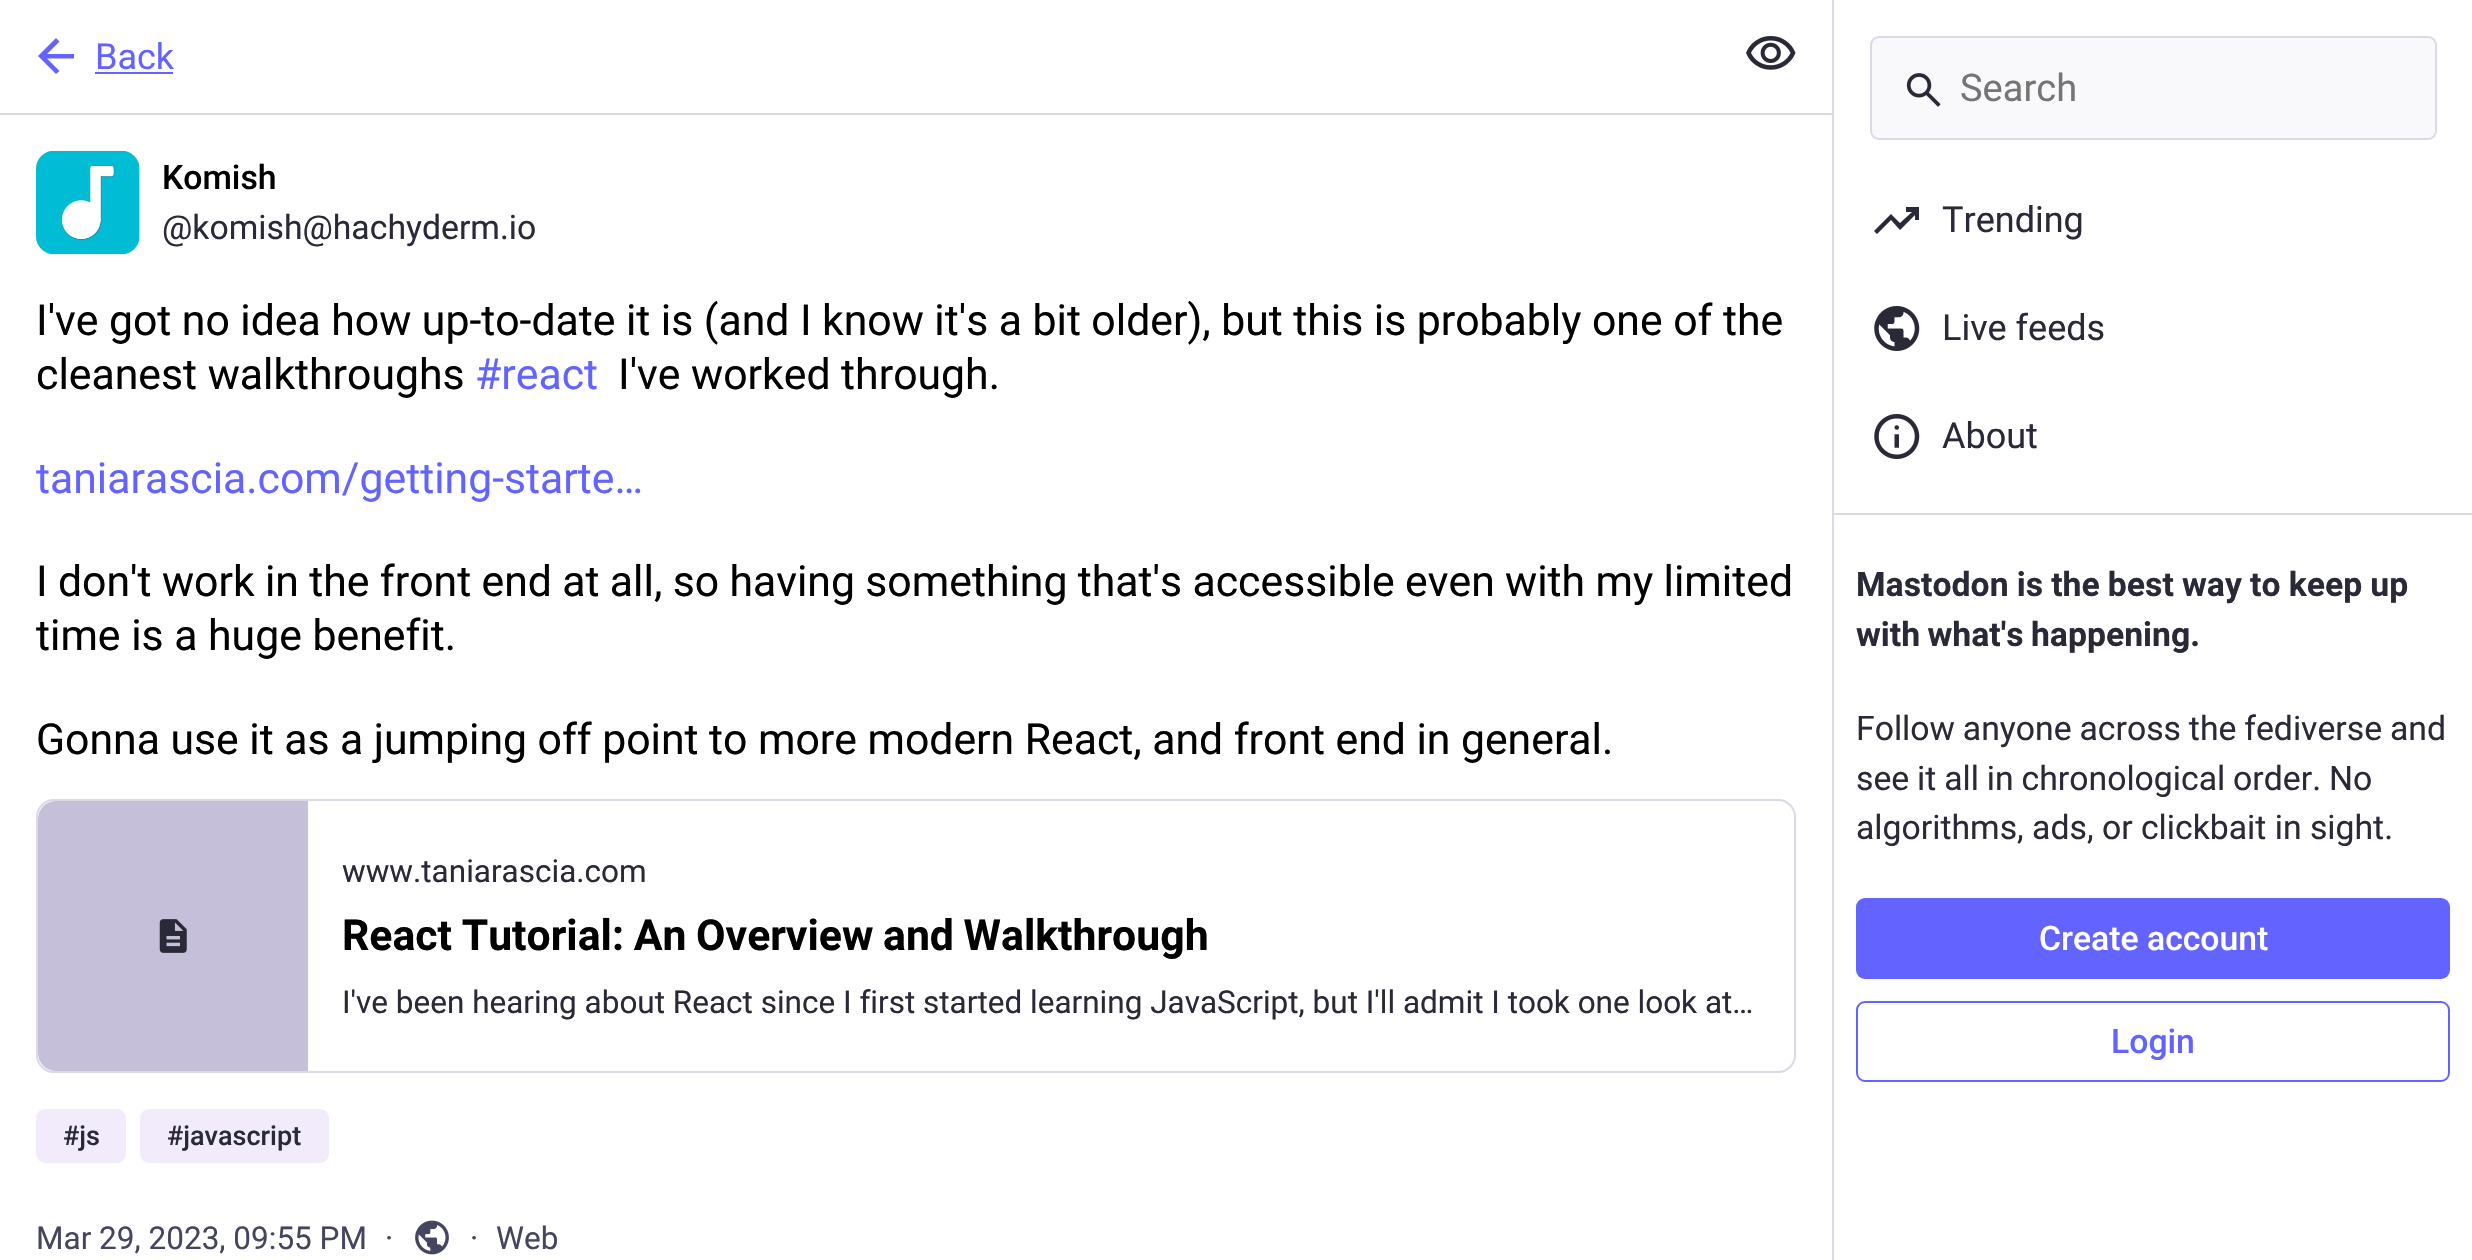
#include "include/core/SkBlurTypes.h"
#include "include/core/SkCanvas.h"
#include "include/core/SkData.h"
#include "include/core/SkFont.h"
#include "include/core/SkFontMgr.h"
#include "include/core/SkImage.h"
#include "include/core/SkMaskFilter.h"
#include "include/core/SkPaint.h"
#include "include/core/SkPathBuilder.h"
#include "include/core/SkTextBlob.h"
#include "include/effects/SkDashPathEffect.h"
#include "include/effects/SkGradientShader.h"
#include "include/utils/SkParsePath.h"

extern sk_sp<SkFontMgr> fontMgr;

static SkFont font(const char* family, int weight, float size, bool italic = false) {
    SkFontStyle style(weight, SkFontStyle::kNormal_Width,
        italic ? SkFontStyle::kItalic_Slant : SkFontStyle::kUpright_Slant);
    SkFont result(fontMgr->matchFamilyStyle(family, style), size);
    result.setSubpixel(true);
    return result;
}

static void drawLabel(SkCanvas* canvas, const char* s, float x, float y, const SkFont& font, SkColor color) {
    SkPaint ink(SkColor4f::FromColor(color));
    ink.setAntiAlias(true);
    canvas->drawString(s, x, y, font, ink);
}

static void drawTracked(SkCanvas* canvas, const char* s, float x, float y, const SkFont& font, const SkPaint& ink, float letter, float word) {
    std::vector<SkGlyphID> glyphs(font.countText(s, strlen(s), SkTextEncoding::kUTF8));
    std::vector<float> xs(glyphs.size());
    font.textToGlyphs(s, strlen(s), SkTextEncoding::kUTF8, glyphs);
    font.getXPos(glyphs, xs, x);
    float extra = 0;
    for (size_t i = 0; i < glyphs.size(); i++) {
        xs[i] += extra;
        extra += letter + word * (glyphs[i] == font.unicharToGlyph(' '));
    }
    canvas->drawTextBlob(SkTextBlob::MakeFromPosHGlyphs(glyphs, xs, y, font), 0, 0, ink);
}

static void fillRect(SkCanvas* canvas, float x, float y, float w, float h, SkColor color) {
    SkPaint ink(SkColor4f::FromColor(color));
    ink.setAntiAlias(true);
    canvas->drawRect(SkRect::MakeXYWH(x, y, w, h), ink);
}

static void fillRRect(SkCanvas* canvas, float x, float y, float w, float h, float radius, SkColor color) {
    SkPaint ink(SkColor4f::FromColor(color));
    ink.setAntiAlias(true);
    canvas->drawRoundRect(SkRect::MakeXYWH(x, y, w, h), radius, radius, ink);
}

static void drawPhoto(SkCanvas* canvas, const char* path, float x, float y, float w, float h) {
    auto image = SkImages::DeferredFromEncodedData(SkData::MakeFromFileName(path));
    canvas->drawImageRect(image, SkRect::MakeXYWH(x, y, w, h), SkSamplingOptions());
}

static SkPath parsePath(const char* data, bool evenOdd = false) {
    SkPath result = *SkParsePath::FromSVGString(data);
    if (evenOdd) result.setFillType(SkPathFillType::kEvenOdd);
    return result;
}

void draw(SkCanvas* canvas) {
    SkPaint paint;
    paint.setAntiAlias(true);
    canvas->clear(0xFFFFFFFF);
    fillRect(canvas, 0, 113, 1832, 2, 0xFFD9D9E8);
    paint.setColor(0xFF6364FF);
    canvas->drawPath(parsePath("M47 58.5L59.5 71L56 74L38 56L56 38L59.5 41.5L47 54H74V58.5Z"), paint);
    SkFont font1 = font("Roboto", 400, 36);
    drawLabel(canvas, "Back", 95, 69, font1, 0xFF6364FF);
    fillRect(canvas, 95, 72, 78, 2, 0xFF6364FF);
    drawPhoto(canvas, "assets/img1.png", 1746, 36, 50, 34);
    fillRRect(canvas, 36, 151, 104, 103, 18, 0xFFE8E6F0);
    drawPhoto(canvas, "assets/img2.png", 36, 150, 104, 105);
    SkFont font2 = font("Roboto", 500, 33.75f);
    drawLabel(canvas, "Komish", 162, 189, font2, 0xFF000000);
    SkFont font3 = font("Roboto", 400, 33.75f);
    drawLabel(canvas, "@komish@hachyderm.io", 162, 239, font3, 0xFF292938);
    SkFont font4 = font("Roboto", 400, 42.75f);
    paint.setColor(0xFF000000);
    drawTracked(canvas, "I've got no idea how up-to-date it is (and I know it's a bit older), but this is probably one of the", 36, 335, font4, paint, 0, -0.1f);
    drawLabel(canvas, "cleanest walkthroughs", 36, 389, font4, 0xFF000000);
    drawLabel(canvas, "#react", 475, 389, font4, 0xFF6364FF);
    drawLabel(canvas, "I've worked through.", 618, 389, font4, 0xFF000000);
    drawLabel(canvas, "taniarascia.com/getting-starte…", 36, 493, font4, 0xFF6364FF);
    drawTracked(canvas, "I don't work in the front end at all, so having something that's accessible even with my limited", 36, 596, font4, paint, 0, -0.25f);
    drawLabel(canvas, "time is a huge benefit.", 36, 650, font4, 0xFF000000);
    drawTracked(canvas, "Gonna use it as a jumping off point to more modern React, and front end in general.", 36, 754, font4, paint, 0, -0.1f);
    paint.setStroke(true);
    paint.setStrokeWidth(2);
    paint.setColor(0xFFD9D9E8);
    canvas->drawRoundRect(SkRect::MakeXYWH(37, 800, 1758, 272), 17, 17, paint);
    canvas->save();
    canvas->clipPath(parsePath("M54 801H1777C1786 801 1793 808 1793 817V1055C1793 1064 1786 1071 1777 1071H54C45 1071 38 1064 38 1055V817C38 808 45 801 54 801Z"), true);
    paint.setStroke(false);
    paint.setColor(0xFFC6BFD9);
    canvas->drawPath(parsePath("M56 801H308V1071H56C46 1071 38 1063 38 1053V819C38 809 46 801 56 801Z"), paint);
    canvas->restore();
    drawPhoto(canvas, "assets/img3.png", 159, 919, 28, 34);
    SkFont font5 = font("Roboto", 400, 31.5f);
    drawLabel(canvas, "www.taniarascia.com", 342, 882, font5, 0xFF292938);
    SkFont font6 = font("Roboto", 700, 42.75f);
    paint.setColor(0xFF000000);
    drawTracked(canvas, "React Tutorial: An Overview and Walkthrough", 342, 950, font6, paint, 0, -1);
    drawLabel(canvas, "I've been hearing about React since I first started learning JavaScript, but I'll admit I took one look at…", 342, 1013, font5, 0xFF292938);
    fillRRect(canvas, 36, 1109, 90, 54, 9, 0xFFF1EBFB);
    SkFont font7 = font("Roboto", 500, 27);
    drawLabel(canvas, "#js", 63, 1145, font7, 0xFF292938);
    fillRRect(canvas, 140, 1109, 189, 54, 9, 0xFFF1EBFB);
    drawLabel(canvas, "#javascript", 167, 1145, font7, 0xFF292938);
    drawLabel(canvas, "Mar 29, 2023, 09:55 PM", 36, 1249, font5, 0xFF45455F);
    drawLabel(canvas, "·", 385, 1249, font5, 0xFF45455F);
    drawPhoto(canvas, "assets/img4.png", 415, 1220, 34, 35);
    drawLabel(canvas, "·", 470, 1249, font5, 0xFF45455F);
    drawLabel(canvas, "Web", 496, 1249, font5, 0xFF45455F);
    fillRect(canvas, 1832, 0, 2, 1260, 0xFFD9D9E8);
    paint.setColor(0xFFF9F9FB);
    canvas->drawRoundRect(SkRect::MakeXYWH(1871, 37, 565, 102), 8, 8, paint);
    paint.setStroke(true);
    paint.setColor(0xFFD9D9E8);
    canvas->drawRoundRect(SkRect::MakeXYWH(1871, 37, 565, 102), 8, 8, paint);
    drawPhoto(canvas, "assets/img5.png", 1906, 73, 35, 34);
    SkFont font8 = font("Roboto", 400, 38);
    drawLabel(canvas, "Search", 1960, 101, font8, 0xFF757575);
    paint.setStroke(false);
    paint.setColor(0xFF292938);
    canvas->drawPath(parsePath("M1877 234L1874 231L1891 214L1900 223L1912 212H1906V207H1919V220H1915V215L1900 230L1891 220Z"), paint);
    drawLabel(canvas, "Trending", 1942, 232, font1, 0xFF292938);
    drawPhoto(canvas, "assets/img6.png", 1874, 306, 46, 45);
    drawLabel(canvas, "Live feeds", 1942, 340, font1, 0xFF292938);
    drawPhoto(canvas, "assets/img7.png", 1874, 414, 46, 45);
    drawLabel(canvas, "About", 1942, 448, font1, 0xFF292938);
    fillRect(canvas, 1834, 513, 638, 2, 0xFFD9D9E8);
    SkFont font9 = font("Roboto", 700, 33.75f);
    drawTracked(canvas, "Mastodon is the best way to keep up", 1856, 596, font9, paint, 0, -0.25f);
    drawTracked(canvas, "with what's happening.", 1856, 646, font9, paint, 0, -1);
    drawTracked(canvas, "Follow anyone across the fediverse and", 1856, 740, font3, paint, 0, -0.5f);
    drawTracked(canvas, "see it all in chronological order. No", 1856, 790, font3, paint, 0, -0.5f);
    drawLabel(canvas, "algorithms, ads, or clickbait in sight.", 1856, 839, font3, 0xFF292938);
    fillRRect(canvas, 1856, 898, 594, 81, 9, 0xFF6364FF);
    drawLabel(canvas, "Create account", 2039, 950, font2, 0xFFFFFFFF);
    paint.setStroke(true);
    paint.setColor(0xFF6364FF);
    canvas->drawRoundRect(SkRect::MakeXYWH(1857, 1002, 592, 79), 8, 8, paint);
    drawLabel(canvas, "Login", 2111, 1053, font2, 0xFF6364FF);
}
